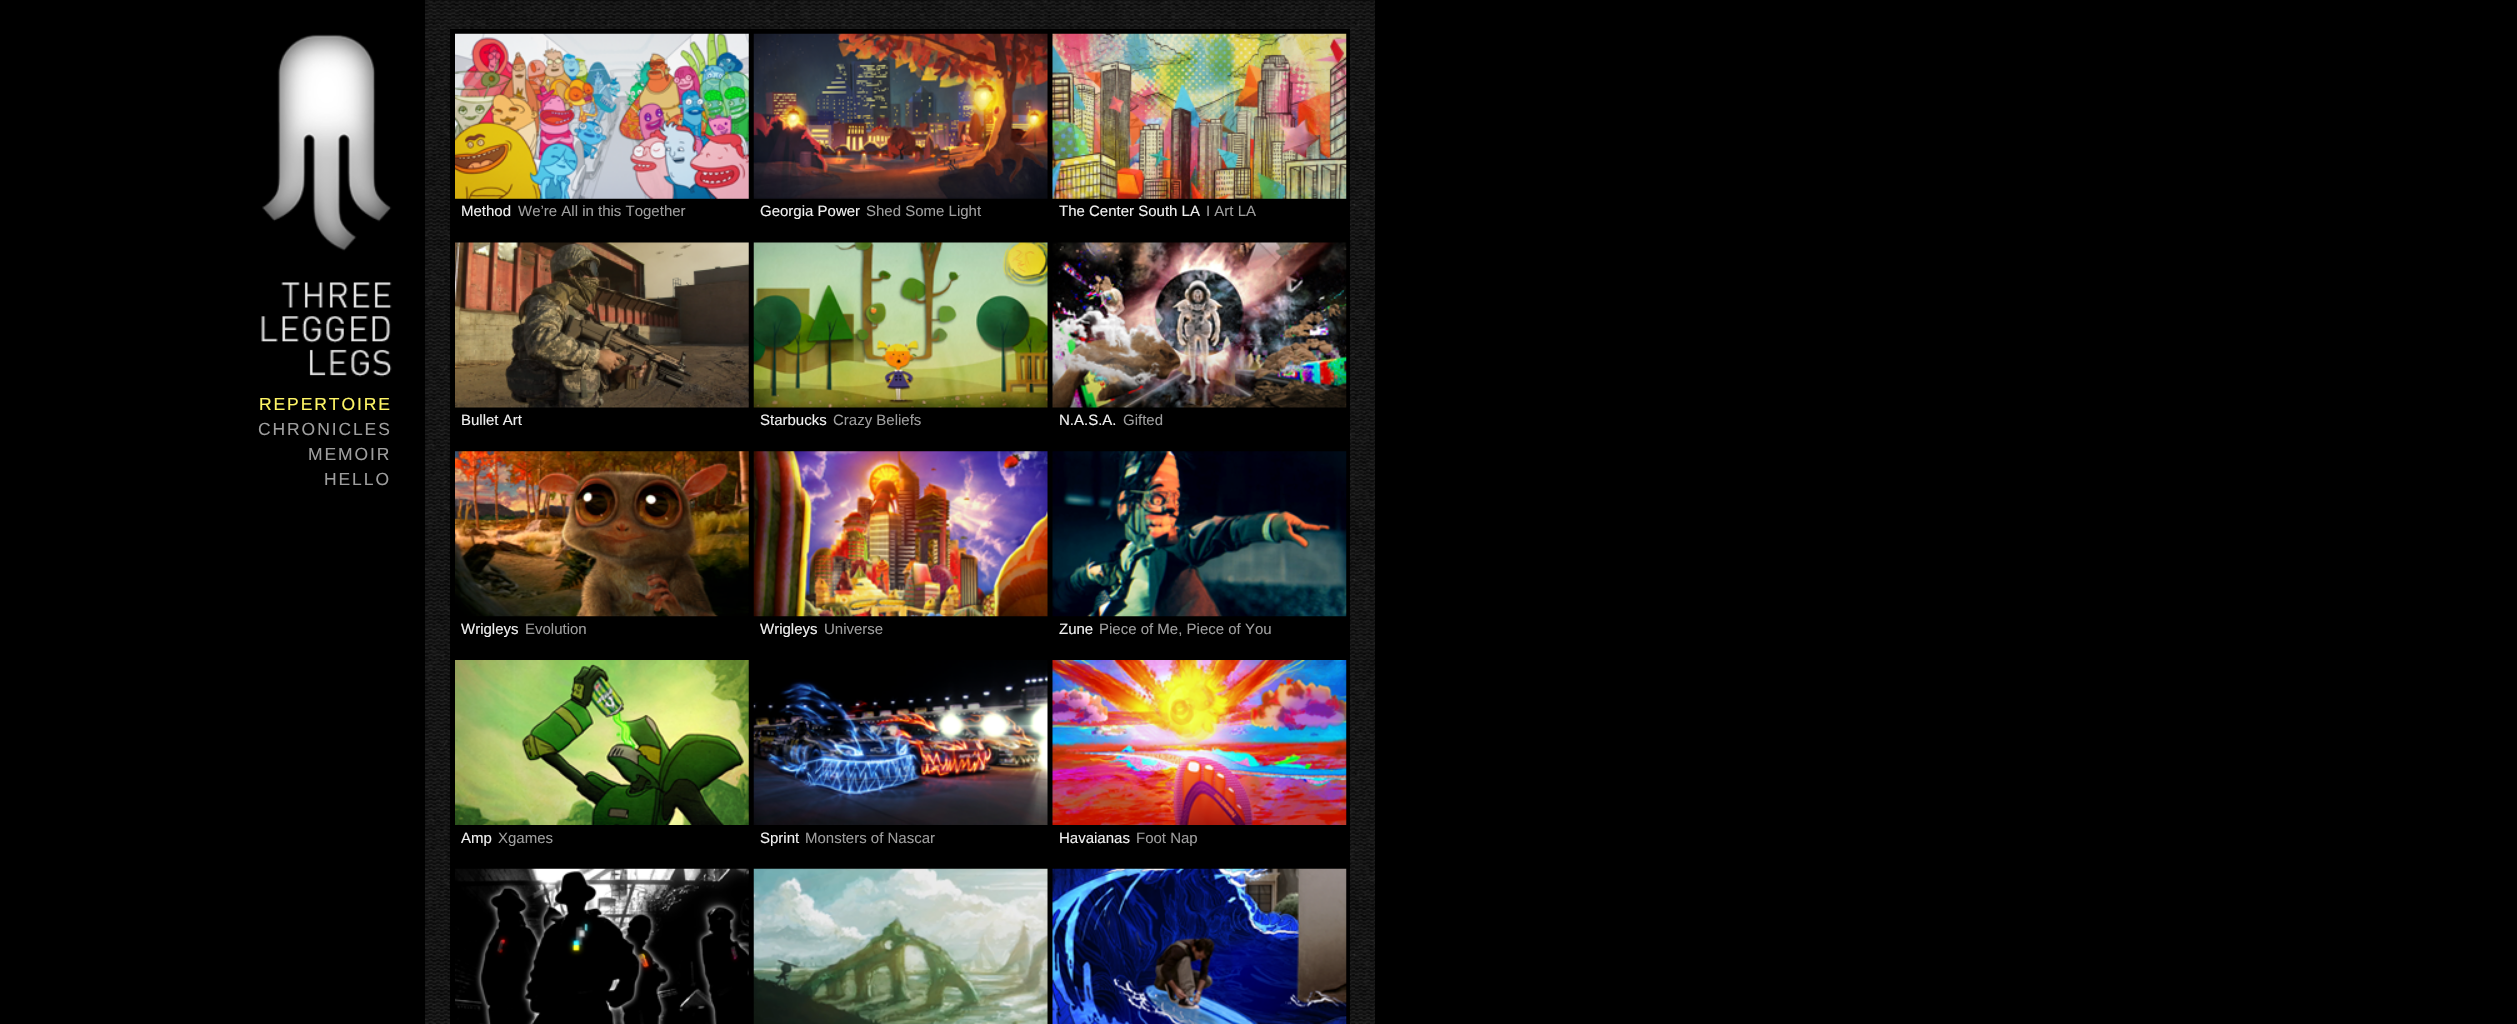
#include "include/core/SkBlurTypes.h"
#include "include/core/SkCanvas.h"
#include "include/core/SkData.h"
#include "include/core/SkFont.h"
#include "include/core/SkFontMgr.h"
#include "include/core/SkImage.h"
#include "include/core/SkMaskFilter.h"
#include "include/core/SkPaint.h"
#include "include/core/SkPathBuilder.h"
#include "include/core/SkTextBlob.h"
#include "include/effects/SkDashPathEffect.h"
#include "include/effects/SkGradientShader.h"
#include "include/utils/SkParsePath.h"

extern sk_sp<SkFontMgr> fontMgr;

static SkFont font(const char* family, int weight, float size, bool italic = false) {
    SkFontStyle style(weight, SkFontStyle::kNormal_Width,
        italic ? SkFontStyle::kItalic_Slant : SkFontStyle::kUpright_Slant);
    SkFont result(fontMgr->matchFamilyStyle(family, style), size);
    result.setSubpixel(true);
    return result;
}

static void drawLabel(SkCanvas* canvas, const char* s, float x, float y, const SkFont& font, SkColor color) {
    SkPaint ink(SkColor4f::FromColor(color));
    ink.setAntiAlias(true);
    canvas->drawString(s, x, y, font, ink);
}

static void drawTracked(SkCanvas* canvas, const char* s, float x, float y, const SkFont& font, const SkPaint& ink, float letter, float word) {
    std::vector<SkGlyphID> glyphs(font.countText(s, strlen(s), SkTextEncoding::kUTF8));
    std::vector<float> xs(glyphs.size());
    font.textToGlyphs(s, strlen(s), SkTextEncoding::kUTF8, glyphs);
    font.getXPos(glyphs, xs, x);
    float extra = 0;
    for (size_t i = 0; i < glyphs.size(); i++) {
        xs[i] += extra;
        extra += letter + word * (glyphs[i] == font.unicharToGlyph(' '));
    }
    canvas->drawTextBlob(SkTextBlob::MakeFromPosHGlyphs(glyphs, xs, y, font), 0, 0, ink);
}

static void fillRect(SkCanvas* canvas, float x, float y, float w, float h, SkColor color) {
    SkPaint ink(SkColor4f::FromColor(color));
    ink.setAntiAlias(true);
    canvas->drawRect(SkRect::MakeXYWH(x, y, w, h), ink);
}

static void drawPhoto(SkCanvas* canvas, const char* path, float x, float y, float w, float h) {
    auto image = SkImages::DeferredFromEncodedData(SkData::MakeFromFileName(path));
    canvas->drawImageRect(image, SkRect::MakeXYWH(x, y, w, h), SkSamplingOptions());
}

void draw(SkCanvas* canvas) {
    SkPaint paint;
    paint.setAntiAlias(true);
    canvas->clear(0xFF000000);
    drawPhoto(canvas, "assets/img1.png", 261, 34, 131, 343);
    SkFont font1 = font("Liberation Sans", 400, 17.5f);
    paint.setColor(0xFFFFF666);
    drawTracked(canvas, "REPERTOIRE", 259, 410, font1, paint, 1.9f, 0);
    paint.setColor(0xFF9E9E9E);
    drawTracked(canvas, "CHRONICLES", 258, 435, font1, paint, 1.9f, 0);
    drawTracked(canvas, "MEMOIR", 308, 460, font1, paint, 1.9f, 0);
    drawTracked(canvas, "HELLO", 324, 485, font1, paint, 1.9f, 0);
    drawPhoto(canvas, "assets/img2.png", 425, 0, 950, 1024);
    fillRect(canvas, 450, 29, 900, 995, 0xFF000000);
    drawPhoto(canvas, "assets/img3.png", 455, 33, 294, 166);
    SkFont font2 = font("Liberation Sans", 400, 15);
    drawLabel(canvas, "Method", 461, 216, font2, 0xFFEFEFEF);
    drawLabel(canvas, "We’re All in this Together", 518, 216, font2, 0xFF9E9E9E);
    drawPhoto(canvas, "assets/img4.png", 753, 33, 295, 166);
    drawLabel(canvas, "Georgia Power", 760, 216, font2, 0xFFEFEFEF);
    drawLabel(canvas, "Shed Some Light", 866, 216, font2, 0xFF9E9E9E);
    drawPhoto(canvas, "assets/img5.png", 1052, 33, 295, 166);
    drawLabel(canvas, "The Center South LA", 1059, 216, font2, 0xFFEFEFEF);
    drawLabel(canvas, "I Art LA", 1206, 216, font2, 0xFF9E9E9E);
    drawPhoto(canvas, "assets/img6.png", 455, 242, 294, 166);
    drawLabel(canvas, "Bullet Art", 461, 425, font2, 0xFFEFEFEF);
    drawPhoto(canvas, "assets/img7.png", 753, 242, 295, 166);
    drawLabel(canvas, "Starbucks", 760, 425, font2, 0xFFEFEFEF);
    drawLabel(canvas, "Crazy Beliefs", 833, 425, font2, 0xFF9E9E9E);
    drawPhoto(canvas, "assets/img8.png", 1052, 242, 295, 166);
    drawLabel(canvas, "N.A.S.A.", 1059, 425, font2, 0xFFEFEFEF);
    drawLabel(canvas, "Gifted", 1123, 425, font2, 0xFF9E9E9E);
    drawPhoto(canvas, "assets/img9.png", 455, 451, 294, 166);
    drawLabel(canvas, "Wrigleys", 461, 634, font2, 0xFFEFEFEF);
    drawLabel(canvas, "Evolution", 525, 634, font2, 0xFF9E9E9E);
    drawPhoto(canvas, "assets/img10.png", 753, 451, 295, 166);
    drawLabel(canvas, "Wrigleys", 760, 634, font2, 0xFFEFEFEF);
    drawLabel(canvas, "Universe", 824, 634, font2, 0xFF9E9E9E);
    drawPhoto(canvas, "assets/img11.png", 1052, 451, 295, 166);
    drawLabel(canvas, "Zune", 1059, 634, font2, 0xFFEFEFEF);
    drawLabel(canvas, "Piece of Me, Piece of You", 1099, 634, font2, 0xFF9E9E9E);
    drawPhoto(canvas, "assets/img12.png", 455, 660, 294, 165);
    drawLabel(canvas, "Amp", 461, 843, font2, 0xFFEFEFEF);
    drawLabel(canvas, "Xgames", 498, 843, font2, 0xFF9E9E9E);
    drawPhoto(canvas, "assets/img13.png", 753, 660, 295, 165);
    drawLabel(canvas, "Sprint", 760, 843, font2, 0xFFEFEFEF);
    drawLabel(canvas, "Monsters of Nascar", 805, 843, font2, 0xFF9E9E9E);
    drawPhoto(canvas, "assets/img14.png", 1052, 660, 295, 165);
    drawLabel(canvas, "Havaianas", 1059, 843, font2, 0xFFEFEFEF);
    drawLabel(canvas, "Foot Nap", 1136, 843, font2, 0xFF9E9E9E);
    drawPhoto(canvas, "assets/img15.png", 455, 868, 294, 156);
    drawPhoto(canvas, "assets/img16.png", 753, 868, 295, 156);
    drawPhoto(canvas, "assets/img17.png", 1052, 868, 295, 156);
}
